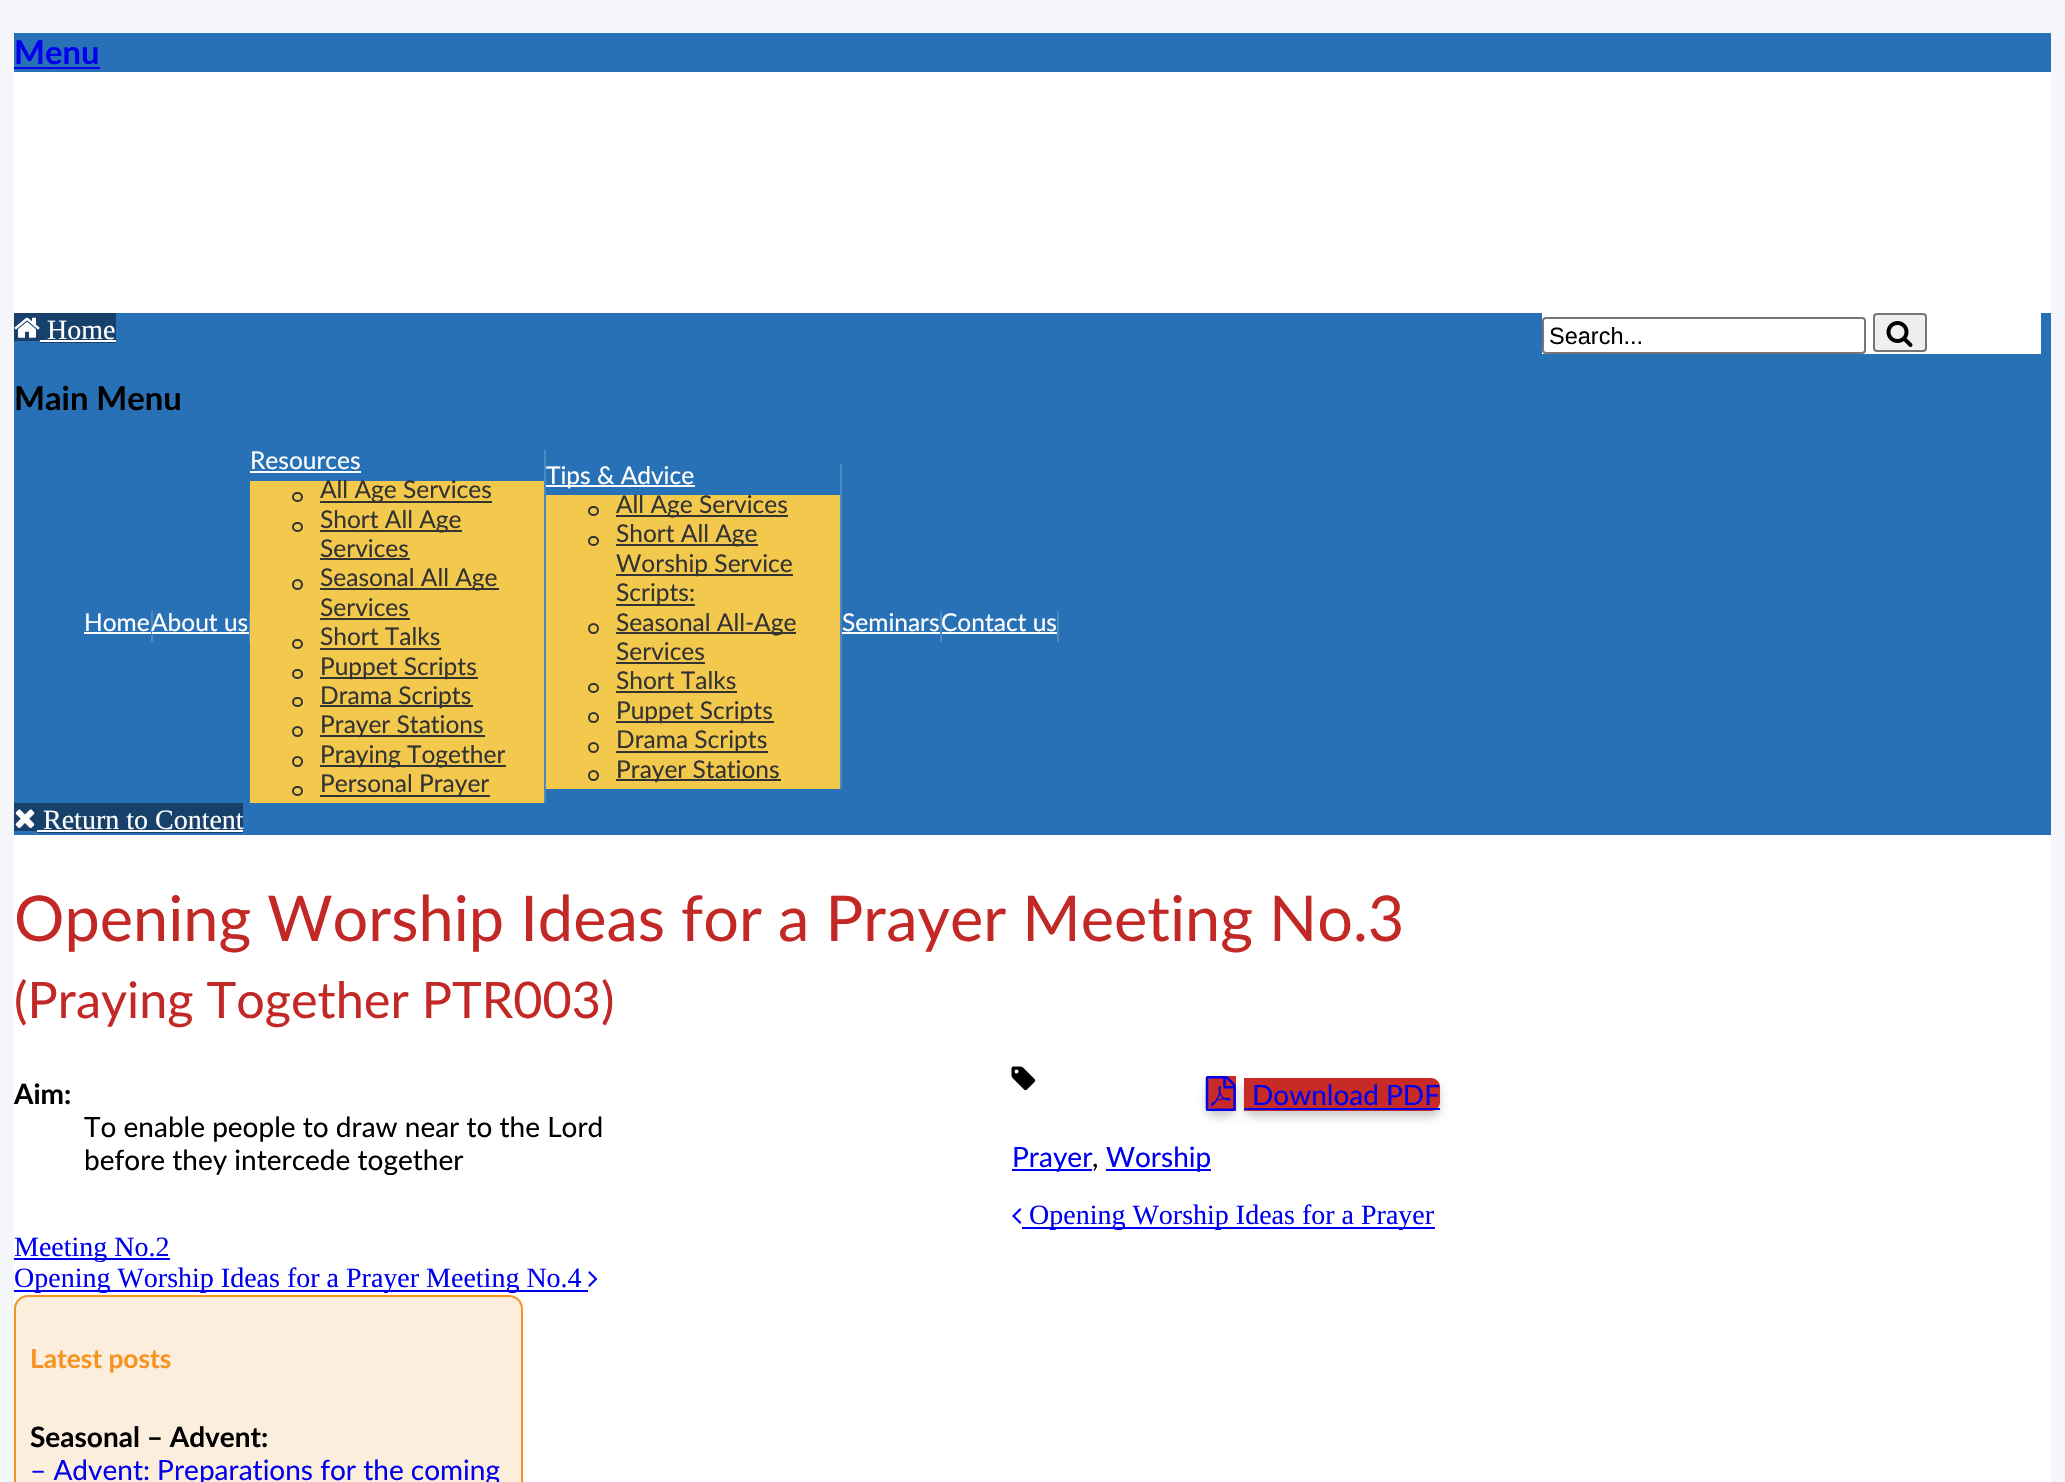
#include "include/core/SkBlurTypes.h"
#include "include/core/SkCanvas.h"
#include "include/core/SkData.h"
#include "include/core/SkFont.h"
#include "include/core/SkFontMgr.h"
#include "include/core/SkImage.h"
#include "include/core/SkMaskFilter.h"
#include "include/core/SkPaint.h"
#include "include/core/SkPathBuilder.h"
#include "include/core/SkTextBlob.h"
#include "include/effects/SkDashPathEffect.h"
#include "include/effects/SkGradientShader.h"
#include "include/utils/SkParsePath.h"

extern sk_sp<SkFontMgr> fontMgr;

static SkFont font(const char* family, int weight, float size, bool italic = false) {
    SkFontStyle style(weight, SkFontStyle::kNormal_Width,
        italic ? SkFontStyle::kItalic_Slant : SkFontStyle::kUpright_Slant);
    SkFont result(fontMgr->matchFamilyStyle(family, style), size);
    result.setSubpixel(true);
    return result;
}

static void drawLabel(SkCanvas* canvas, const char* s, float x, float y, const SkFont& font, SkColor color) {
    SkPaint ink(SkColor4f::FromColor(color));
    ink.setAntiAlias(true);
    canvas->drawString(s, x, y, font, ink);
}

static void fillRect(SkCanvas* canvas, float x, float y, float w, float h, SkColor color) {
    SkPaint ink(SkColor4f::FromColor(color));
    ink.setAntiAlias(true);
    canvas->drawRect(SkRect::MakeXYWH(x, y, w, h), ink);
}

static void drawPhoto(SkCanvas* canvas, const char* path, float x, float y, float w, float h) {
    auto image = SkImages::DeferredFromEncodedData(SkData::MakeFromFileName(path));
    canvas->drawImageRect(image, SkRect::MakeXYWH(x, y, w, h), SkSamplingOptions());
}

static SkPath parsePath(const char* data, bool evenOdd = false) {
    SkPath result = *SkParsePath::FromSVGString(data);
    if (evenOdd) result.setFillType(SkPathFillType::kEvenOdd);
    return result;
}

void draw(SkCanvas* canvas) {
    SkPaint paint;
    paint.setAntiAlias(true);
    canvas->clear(0xFFF5F6F9);
    fillRect(canvas, 14, 72, 2037, 1410, 0xFFFFFFFF);
    fillRect(canvas, 14, 33, 2037, 39, 0xFF2971B6);
    SkFont font1 = font("Lato", 700, 32.75f);
    drawLabel(canvas, "Menu", 14, 64, font1, 0xFF0000EE);
    fillRect(canvas, 14, 67, 86, 2, 0xFF0000EE);
    fillRect(canvas, 14, 313, 2037, 522, 0xFF2971B6);
    fillRect(canvas, 14, 313, 26, 28, 0xFF17416A);
    fillRect(canvas, 40, 313, 76, 30, 0xFF17416A);
    drawPhoto(canvas, "assets/img1.png", 14, 317, 26, 21);
    SkFont font2 = font("Liberation Serif", 400, 28);
    drawLabel(canvas, "Home", 47, 339, font2, 0xFFFFFFFF);
    fillRect(canvas, 40, 340, 76, 2, 0xFFFFFFFF);
    drawLabel(canvas, "Main Menu", 14, 410, font1, 0xFF000000);
    fillRect(canvas, 151, 611, 2, 31, 0xFF4C89BF);
    SkFont font3 = font("Lato", 400, 24.5f);
    drawLabel(canvas, "Home", 84, 631, font3, 0xFFFFFFFF);
    fillRect(canvas, 84, 632, 67, 2, 0xFFFFFFFF);
    fillRect(canvas, 249, 611, 1, 31, 0xFF4C89BF);
    drawLabel(canvas, "About us", 151, 631, font3, 0xFFFFFFFF);
    fillRect(canvas, 152, 632, 97, 2, 0xFFFFFFFF);
    fillRect(canvas, 544, 450, 2, 353, 0xFF4C89BF);
    drawLabel(canvas, "Resources", 250, 469, font3, 0xFFFFFFFF);
    fillRect(canvas, 250, 471, 111, 2, 0xFFFFFFFF);
    fillRect(canvas, 250, 481, 294, 322, 0xFFF2C94C);
    paint.setStroke(true);
    paint.setStrokeWidth(2);
    paint.setColor(0xFF333333);
    canvas->drawRoundRect(SkRect::MakeXYWH(293, 493, 9, 8), 4, 4, paint);
    fillRect(canvas, 320, 501, 172, 2, 0xFF333333);
    drawLabel(canvas, "All Age Services", 320, 498, font3, 0xFF333333);
    canvas->drawRoundRect(SkRect::MakeXYWH(293, 523, 9, 8), 4, 4, paint);
    fillRect(canvas, 320, 530, 142, 2, 0xFF333333);
    drawLabel(canvas, "Short All Age", 320, 528, font3, 0xFF333333);
    drawLabel(canvas, "Services", 320, 557, font3, 0xFF333333);
    fillRect(canvas, 320, 558, 90, 2, 0xFF333333);
    canvas->drawCircle(297.5f, 584.5f, 4.5f, paint);
    fillRect(canvas, 320, 588, 179, 2, 0xFF333333);
    drawLabel(canvas, "Seasonal All Age", 320, 586, font3, 0xFF333333);
    drawLabel(canvas, "Services", 320, 616, font3, 0xFF333333);
    fillRect(canvas, 320, 618, 90, 2, 0xFF333333);
    canvas->drawRoundRect(SkRect::MakeXYWH(293, 640, 9, 8), 4, 4, paint);
    drawLabel(canvas, "Short Talks", 320, 645, font3, 0xFF333333);
    fillRect(canvas, 320, 648, 121, 2, 0xFF333333);
    canvas->drawRoundRect(SkRect::MakeXYWH(293, 670, 9, 8), 4, 4, paint);
    fillRect(canvas, 320, 677, 158, 2, 0xFF333333);
    drawLabel(canvas, "Puppet Scripts", 320, 675, font3, 0xFF333333);
    canvas->drawRoundRect(SkRect::MakeXYWH(293, 698, 9, 8), 4, 4, paint);
    fillRect(canvas, 320, 705, 153, 2, 0xFF333333);
    drawLabel(canvas, "Drama Scripts", 320, 704, font3, 0xFF333333);
    canvas->drawCircle(297.5f, 731.5f, 4.5f, paint);
    fillRect(canvas, 320, 735, 165, 2, 0xFF333333);
    drawLabel(canvas, "Prayer Stations", 320, 733, font3, 0xFF333333);
    canvas->drawCircle(297.5f, 761.5f, 4.5f, paint);
    fillRect(canvas, 320, 765, 186, 2, 0xFF333333);
    drawLabel(canvas, "Praying Together", 320, 763, font3, 0xFF333333);
    canvas->drawRoundRect(SkRect::MakeXYWH(293, 787, 9, 8), 4, 4, paint);
    fillRect(canvas, 320, 795, 170, 2, 0xFF333333);
    drawLabel(canvas, "Personal Prayer", 320, 792, font3, 0xFF333333);
    fillRect(canvas, 840, 464, 2, 325, 0xFF4C89BF);
    fillRect(canvas, 546, 485, 149, 2, 0xFFFFFFFF);
    drawLabel(canvas, "Tips & Advice", 546, 484, font3, 0xFFFFFFFF);
    fillRect(canvas, 546, 495, 294, 294, 0xFFF2C94C);
    canvas->drawRoundRect(SkRect::MakeXYWH(589, 507, 9, 8), 4, 4, paint);
    fillRect(canvas, 616, 515, 172, 2, 0xFF333333);
    drawLabel(canvas, "All Age Services", 616, 513, font3, 0xFF333333);
    canvas->drawRoundRect(SkRect::MakeXYWH(589, 537, 9, 8), 4, 4, paint);
    fillRect(canvas, 616, 544, 142, 2, 0xFF333333);
    drawLabel(canvas, "Short All Age", 616, 542, font3, 0xFF333333);
    fillRect(canvas, 616, 574, 177, 2, 0xFF333333);
    drawLabel(canvas, "Worship Service", 616, 572, font3, 0xFF333333);
    fillRect(canvas, 616, 604, 79, 2, 0xFF333333);
    drawLabel(canvas, "Scripts:", 616, 601, font3, 0xFF333333);
    canvas->drawCircle(593.5f, 628.5f, 4.5f, paint);
    fillRect(canvas, 616, 632, 180, 2, 0xFF333333);
    drawLabel(canvas, "Seasonal All-Age", 616, 631, font3, 0xFF333333);
    drawLabel(canvas, "Services", 616, 660, font3, 0xFF333333);
    fillRect(canvas, 616, 662, 89, 2, 0xFF333333);
    canvas->drawRoundRect(SkRect::MakeXYWH(589, 684, 9, 8), 4, 4, paint);
    drawLabel(canvas, "Short Talks", 616, 689, font3, 0xFF333333);
    fillRect(canvas, 616, 691, 121, 2, 0xFF333333);
    canvas->drawCircle(593.5f, 717.5f, 4.5f, paint);
    fillRect(canvas, 616, 721, 158, 2, 0xFF333333);
    drawLabel(canvas, "Puppet Scripts", 616, 719, font3, 0xFF333333);
    canvas->drawCircle(593.5f, 747.5f, 4.5f, paint);
    fillRect(canvas, 616, 751, 152, 2, 0xFF333333);
    drawLabel(canvas, "Drama Scripts", 616, 748, font3, 0xFF333333);
    canvas->drawCircle(593.5f, 775.5f, 4.5f, paint);
    fillRect(canvas, 616, 779, 165, 2, 0xFF333333);
    drawLabel(canvas, "Prayer Stations", 616, 778, font3, 0xFF333333);
    fillRect(canvas, 940, 611, 2, 31, 0xFF4C89BF);
    drawLabel(canvas, "Seminars", 842, 631, font3, 0xFFFFFFFF);
    fillRect(canvas, 842, 632, 98, 2, 0xFFFFFFFF);
    fillRect(canvas, 1057, 611, 2, 31, 0xFF4C89BF);
    drawLabel(canvas, "Contact us", 941, 631, font3, 0xFFFFFFFF);
    fillRect(canvas, 942, 632, 115, 2, 0xFFFFFFFF);
    fillRect(canvas, 1542, 313, 499, 41, 0xFFFFFFFF);
    paint.setColor(0xFF767676);
    canvas->drawRoundRect(SkRect::MakeXYWH(1543, 318, 322, 35), 3, 3, paint);
    SkFont font4 = font("Liberation Sans", 400, 23.5f);
    drawLabel(canvas, "Search...", 1549, 344, font4, 0xFF000000);
    paint.setStroke(false);
    paint.setColor(0xFFEFEFEF);
    canvas->drawRoundRect(SkRect::MakeXYWH(1874, 314, 52, 37), 3, 3, paint);
    paint.setStroke(true);
    paint.setColor(0xFF767676);
    canvas->drawRoundRect(SkRect::MakeXYWH(1874, 314, 52, 37), 3, 3, paint);
    drawPhoto(canvas, "assets/img2.png", 1886, 321, 27, 26);
    fillRect(canvas, 14, 803, 23, 28, 0xFF17416A);
    fillRect(canvas, 37, 803, 206, 30, 0xFF17416A);
    drawPhoto(canvas, "assets/img3.png", 15, 809, 20, 19);
    drawLabel(canvas, "Return to Content", 43, 829, font2, 0xFFFFFFFF);
    fillRect(canvas, 37, 830, 206, 2, 0xFFFFFFFF);
    SkFont font5 = font("Lato", 400, 63);
    drawLabel(canvas, "Opening Worship Ideas for a Prayer Meeting No.3", 14, 941, font5, 0xFFC22926);
    SkFont font6 = font("Lato", 400, 50.4f);
    drawLabel(canvas, "(Praying Together PTR003)", 14, 1018, font6, 0xFFC22926);
    SkFont font7 = font("Lato", 700, 28);
    drawLabel(canvas, "Aim:", 14, 1104, font7, 0xFF000000);
    SkFont font8 = font("Lato", 400, 28);
    drawLabel(canvas, "To enable people to draw near to the Lord", 84, 1137, font8, 0xFF000000);
    drawLabel(canvas, "before they intercede together", 84, 1170, font8, 0xFF000000);
    paint.setStroke(false);
    paint.setColor(0xFFCCCCCC);
    paint.setMaskFilter(SkMaskFilter::MakeBlur(kNormal_SkBlurStyle, 4.5f));
    canvas->drawRoundRect(SkRect::MakeXYWH(1206, 1082, 30, 35), 9, 9, paint);
    paint.setMaskFilter(nullptr);
    paint.setColor(0xFFC82A26);
    canvas->drawPath(parsePath("M1215 1076H1236V1111H1215C1210 1111 1206 1107 1206 1102V1085C1206 1080 1210 1076 1215 1076Z"), paint);
    paint.setColor(0xFFCCCCCC);
    paint.setMaskFilter(SkMaskFilter::MakeBlur(kNormal_SkBlurStyle, 4.5f));
    canvas->drawRoundRect(SkRect::MakeXYWH(1244, 1083, 196, 34), 9, 9, paint);
    paint.setMaskFilter(nullptr);
    paint.setColor(0xFFC82A26);
    canvas->drawPath(parsePath("M1244 1078H1431C1436 1078 1440 1082 1440 1087V1102C1440 1107 1436 1111 1431 1111H1244Z"), paint);
    drawPhoto(canvas, "assets/img4.png", 1205, 1076, 31, 35);
    drawLabel(canvas, "Download PDF", 1252, 1105, font8, 0xFF0000EE);
    fillRect(canvas, 1244, 1108, 196, 2, 0xFF0000EE);
    drawPhoto(canvas, "assets/img5.png", 1011, 1066, 25, 25);
    fillRect(canvas, 1012, 1169, 80, 2, 0xFF0000EE);
    drawLabel(canvas, "Prayer", 1012, 1167, font8, 0xFF0000EE);
    drawLabel(canvas, ",", 1092, 1167, font8, 0xFF000000);
    fillRect(canvas, 1106, 1169, 105, 2, 0xFF0000EE);
    drawLabel(canvas, "Worship", 1106, 1167, font8, 0xFF0000EE);
    drawPhoto(canvas, "assets/img6.png", 1012, 1208, 10, 16);
    fillRect(canvas, 1022, 1227, 413, 2, 0xFF0000EE);
    drawLabel(canvas, "Opening Worship Ideas for a Prayer", 1029, 1224, font2, 0xFF0000EE);
    fillRect(canvas, 14, 1258, 156, 2, 0xFF0000EE);
    drawLabel(canvas, "Meeting No.2", 14, 1256, font2, 0xFF0000EE);
    fillRect(canvas, 14, 1290, 574, 2, 0xFF0000EE);
    drawLabel(canvas, "Opening Worship Ideas for a Prayer Meeting No.4", 14, 1287, font2, 0xFF0000EE);
    drawPhoto(canvas, "assets/img7.png", 588, 1271, 10, 16);
    paint.setColor(0xFFFCEEDD);
    canvas->drawRoundRect(SkRect::MakeXYWH(15, 1296, 507, 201), 13, 13, paint);
    paint.setStroke(true);
    paint.setColor(0xFFF79322);
    canvas->drawRoundRect(SkRect::MakeXYWH(15, 1296, 507, 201), 13, 13, paint);
    SkFont font9 = font("Lato", 700, 26.25f);
    drawLabel(canvas, "Latest posts", 30, 1368, font9, 0xFFF79322);
    drawLabel(canvas, "Seasonal – Advent:", 30, 1447, font7, 0xFF000000);
    drawLabel(canvas, "– Advent: Preparations for the coming", 30, 1480, font8, 0xFF0000EE);
}
